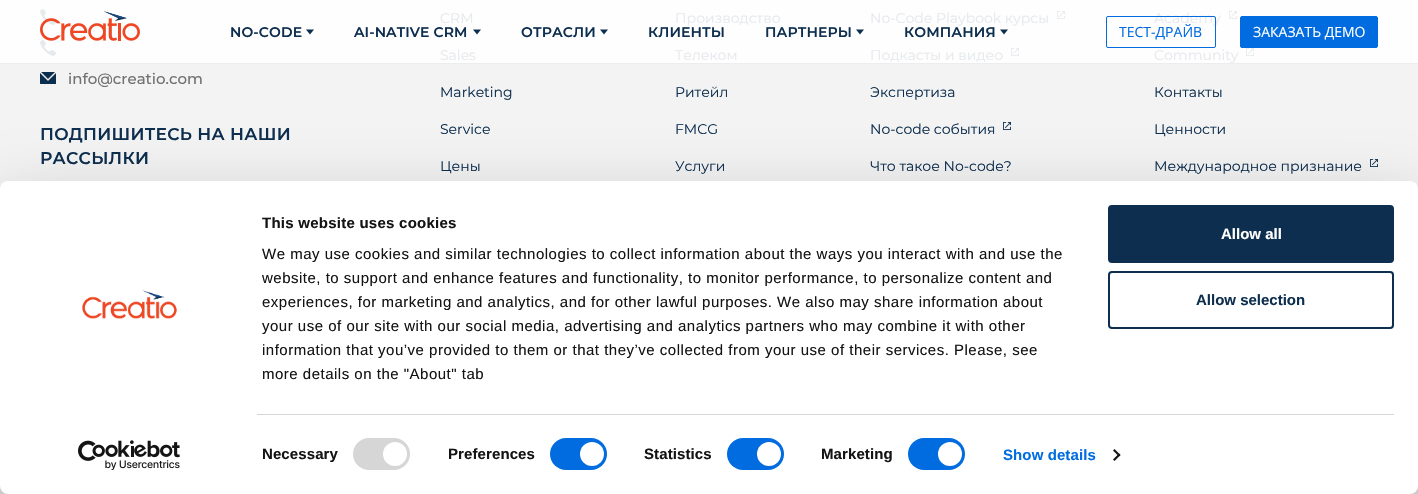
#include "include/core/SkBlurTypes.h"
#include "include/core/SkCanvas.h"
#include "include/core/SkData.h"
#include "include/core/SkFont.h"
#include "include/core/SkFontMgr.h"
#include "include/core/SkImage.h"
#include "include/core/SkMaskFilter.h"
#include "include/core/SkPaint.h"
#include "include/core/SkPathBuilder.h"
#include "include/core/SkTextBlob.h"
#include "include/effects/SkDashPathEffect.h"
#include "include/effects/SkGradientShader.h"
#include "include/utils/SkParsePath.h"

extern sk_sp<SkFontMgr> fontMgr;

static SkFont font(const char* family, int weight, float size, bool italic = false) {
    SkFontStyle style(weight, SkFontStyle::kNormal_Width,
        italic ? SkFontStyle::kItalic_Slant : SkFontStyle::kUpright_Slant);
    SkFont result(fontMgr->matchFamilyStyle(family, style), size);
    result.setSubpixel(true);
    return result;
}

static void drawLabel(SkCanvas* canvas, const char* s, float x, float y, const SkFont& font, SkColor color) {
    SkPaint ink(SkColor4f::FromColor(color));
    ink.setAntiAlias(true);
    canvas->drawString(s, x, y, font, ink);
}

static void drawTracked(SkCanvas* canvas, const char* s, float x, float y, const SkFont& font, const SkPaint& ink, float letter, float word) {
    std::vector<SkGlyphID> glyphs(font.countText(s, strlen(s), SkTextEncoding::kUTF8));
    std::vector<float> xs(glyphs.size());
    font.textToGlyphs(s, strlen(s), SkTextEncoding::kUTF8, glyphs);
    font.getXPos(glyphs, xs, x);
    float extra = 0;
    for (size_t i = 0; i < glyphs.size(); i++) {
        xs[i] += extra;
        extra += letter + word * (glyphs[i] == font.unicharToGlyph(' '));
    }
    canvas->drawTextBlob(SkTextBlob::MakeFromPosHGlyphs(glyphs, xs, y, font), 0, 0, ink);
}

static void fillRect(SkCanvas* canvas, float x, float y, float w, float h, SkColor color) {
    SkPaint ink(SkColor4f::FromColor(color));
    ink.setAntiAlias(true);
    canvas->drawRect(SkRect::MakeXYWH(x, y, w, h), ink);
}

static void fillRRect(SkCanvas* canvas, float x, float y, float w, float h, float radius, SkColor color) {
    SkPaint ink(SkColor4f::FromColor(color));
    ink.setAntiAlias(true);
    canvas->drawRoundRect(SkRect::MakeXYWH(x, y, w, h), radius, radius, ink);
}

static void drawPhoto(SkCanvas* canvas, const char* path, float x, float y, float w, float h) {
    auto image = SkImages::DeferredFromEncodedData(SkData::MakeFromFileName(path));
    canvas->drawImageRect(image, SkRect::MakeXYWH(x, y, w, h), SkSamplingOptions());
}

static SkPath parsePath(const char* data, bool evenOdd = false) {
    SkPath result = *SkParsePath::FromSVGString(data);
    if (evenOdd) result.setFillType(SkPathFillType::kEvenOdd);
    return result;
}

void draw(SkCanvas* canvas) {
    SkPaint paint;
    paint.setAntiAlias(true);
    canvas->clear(0xFFF3F3F3);
    fillRect(canvas, 0, 0, 1418, 63, 0xFFFEFEFE);
    drawPhoto(canvas, "assets/img1.png", 40, 9, 16, 16);
    drawPhoto(canvas, "assets/img1.png", 40, 40, 16, 16);
    drawPhoto(canvas, "assets/img2.png", 40, 72, 16, 12);
    SkFont font1 = font("Montserrat", 500, 15);
    drawLabel(canvas, "info@creatio.com", 68, 84, font1, 0xFF727272);
    SkFont font2 = font("Montserrat", 100, 17);
    paint.setColor(0xFF0D2E4E);
    drawTracked(canvas, "ПОДПИШИТЕСЬ НА НАШИ", 40, 140, font2, paint, 0.3f, 0);
    drawTracked(canvas, "РАССЫЛКИ", 40, 164, font2, paint, 0.3f, 0);
    SkFont font3 = font("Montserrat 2", 100, 14);
    drawLabel(canvas, "CRM", 440, 23, font3, 0xFFE7EAED);
    drawLabel(canvas, "Sales", 440, 60, font3, 0xFFE7EAED);
    drawLabel(canvas, "Marketing", 440, 97, font3, 0xFF0D2E4E);
    drawLabel(canvas, "Service", 440, 134, font3, 0xFF0D2E4E);
    drawLabel(canvas, "Цены", 440, 171, font3, 0xFF0D2E4E);
    drawLabel(canvas, "Производство", 675, 23, font3, 0xFFE7EAED);
    drawLabel(canvas, "Телеком", 675, 60, font3, 0xFFE7EAED);
    drawLabel(canvas, "Ритейл", 675, 97, font3, 0xFF0D2E4E);
    drawLabel(canvas, "FMCG", 675, 134, font3, 0xFF0D2E4E);
    drawLabel(canvas, "Услуги", 675, 171, font3, 0xFF0D2E4E);
    drawLabel(canvas, "No-Code Playbook курсы", 870, 23, font3, 0xFFE7EAED);
    drawPhoto(canvas, "assets/img3.png", 1057, 11, 8, 8);
    drawLabel(canvas, "Подкасты и видео", 870, 60, font3, 0xFFE7EAED);
    drawPhoto(canvas, "assets/img3.png", 1011, 48, 8, 8);
    drawLabel(canvas, "Экспертиза", 870, 97, font3, 0xFF0D2E4E);
    drawLabel(canvas, "No-code события", 870, 134, font3, 0xFF0D2E4E);
    drawPhoto(canvas, "assets/img4.png", 1003, 122, 8, 8);
    drawLabel(canvas, "Что такое No-code?", 870, 171, font3, 0xFF0D2E4E);
    drawLabel(canvas, "Academy", 1154, 23, font3, 0xFFE7EAED);
    drawPhoto(canvas, "assets/img3.png", 1229, 11, 8, 8);
    drawLabel(canvas, "Community", 1154, 60, font3, 0xFFE7EAED);
    drawPhoto(canvas, "assets/img3.png", 1246, 48, 8, 8);
    drawLabel(canvas, "Контакты", 1154, 97, font3, 0xFF0D2E4E);
    drawLabel(canvas, "Ценности", 1154, 134, font3, 0xFF0D2E4E);
    drawLabel(canvas, "Международное признание", 1154, 171, font3, 0xFF0D2E4E);
    drawPhoto(canvas, "assets/img4.png", 1370, 159, 8, 8);
    fillRect(canvas, 0, 486, 1418, 8, 0xFFE8E8E8);
    drawPhoto(canvas, "assets/img5.png", 40, 11, 100, 30);
    SkFont font4 = font("Montserrat", 100, 14);
    drawTracked(canvas, "NO-CODE", 230, 37, font4, paint, 0.1f, 0);
    canvas->drawPath(parsePath("M306 29.5H314L310 34.5Z"), paint);
    drawTracked(canvas, "AI-NATIVE CRM", 354, 37, font4, paint, 0.1f, 0);
    canvas->drawPath(parsePath("M473 29.5H481L477 34.5Z"), paint);
    drawTracked(canvas, "ОТРАСЛИ", 521, 37, font4, paint, 0.1f, 0);
    canvas->drawPath(parsePath("M600 29.5H608L604 34.5Z"), paint);
    drawTracked(canvas, "КЛИЕНТЫ", 648, 37, font4, paint, 0.1f, 0);
    drawTracked(canvas, "ПАРТНЕРЫ", 765, 37, font4, paint, 0.1f, 0);
    canvas->drawPath(parsePath("M856 29.5H864L860 34.5Z"), paint);
    drawTracked(canvas, "КОМПАНИЯ", 904, 37, font4, paint, 0.1f, 0);
    canvas->drawPath(parsePath("M1000 29.5H1008L1004 34.5Z"), paint);
    paint.setStroke(true);
    paint.setStrokeWidth(1);
    paint.setColor(0xFF006CE0);
    canvas->drawRoundRect(SkRect::MakeXYWH(1106.5f, 16.5f, 109, 31), 1.5f, 1.5f, paint);
    SkFont font5 = font("Open Sans", 400, 14);
    drawLabel(canvas, "ТЕСТ-ДРАЙВ", 1119, 37, font5, 0xFF006CE0);
    paint.setStroke(false);
    canvas->drawRoundRect(SkRect::MakeXYWH(1240.5f, 16.5f, 137, 31), 1.5f, 1.5f, paint);
    paint.setStroke(true);
    canvas->drawRoundRect(SkRect::MakeXYWH(1240.5f, 16.5f, 137, 31), 1.5f, 1.5f, paint);
    drawLabel(canvas, "ЗАКАЗАТЬ ДЕМО", 1253, 37, font5, 0xFFFFFFFF);
    fillRect(canvas, 0, 63, 1418, 1, 0xFFEDEDED);
    paint.setStroke(false);
    paint.setColor(0x4D000000);
    paint.setMaskFilter(SkMaskFilter::MakeBlur(kNormal_SkBlurStyle, 35));
    canvas->drawRoundRect(SkRect::MakeXYWH(0, 211, 1418, 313), 8, 8, paint);
    paint.setMaskFilter(nullptr);
    fillRRect(canvas, 0, 181, 1418, 313, 8, 0xFFFFFFFF);
    SkFont font6 = font("Liberation Sans", 700, 15);
    paint.setColor(0xFF141414);
    drawTracked(canvas, "This website uses cookies", 262, 228, font6, paint, 0.25f, 0);
    SkFont font7 = font("Liberation Sans", 400, 15);
    drawTracked(canvas, "We may use cookies and similar technologies to collect information about the ways you interact with and use the", 262, 259, font7, paint, 0.5f, 0);
    drawTracked(canvas, "website, to support and enhance features and functionality, to monitor performance, to personalize content and", 262, 283, font7, paint, 0.5f, 0);
    drawTracked(canvas, "experiences, for marketing and analytics, and for other lawful purposes. We also may share information about", 262, 307, font7, paint, 0.5f, 0);
    drawTracked(canvas, "your use of our site with our social media, advertising and analytics partners who may combine it with other", 262, 331, font7, paint, 0.5f, 0);
    drawTracked(canvas, "information that you’ve provided to them or that they’ve collected from your use of their services. Please, see", 262, 355, font7, paint, 0.5f, 0);
    drawTracked(canvas, "more details on the \"About\" tab", 262, 379, font7, paint, 0.5f, 0);
    fillRect(canvas, 257, 414, 1137, 1, 0xFFD6D6D6);
    drawTracked(canvas, "Necessary", 262, 459, font6, paint, 0.1f, 0);
    fillRRect(canvas, 353, 438, 57, 32, 16, 0xFFD6D6D6);
    paint.setColor(0xFFFFFFFF);
    canvas->drawCircle(395, 454, 12, paint);
    paint.setColor(0xFF141414);
    drawTracked(canvas, "Preferences", 448, 459, font6, paint, 0.1f, 0);
    fillRRect(canvas, 550, 438, 57, 32, 16, 0xFF006CE0);
    paint.setColor(0xFFFFFFFF);
    canvas->drawCircle(592, 454, 12, paint);
    paint.setColor(0xFF141414);
    drawTracked(canvas, "Statistics", 644, 459, font6, paint, 0.1f, 0);
    fillRRect(canvas, 727, 438, 57, 32, 16, 0xFF006CE0);
    paint.setColor(0xFFFFFFFF);
    canvas->drawCircle(769, 454, 12, paint);
    paint.setColor(0xFF141414);
    drawTracked(canvas, "Marketing", 821, 459, font6, paint, 0.1f, 0);
    fillRRect(canvas, 908, 438, 57, 32, 16, 0xFF006CE0);
    paint.setColor(0xFFFFFFFF);
    canvas->drawCircle(950, 454, 12, paint);
    paint.setColor(0xFF006CE0);
    drawTracked(canvas, "Show details", 1003, 460, font6, paint, 0.1f, 0);
    paint.setColor(0xFF141414);
    canvas->drawPath(parsePath("M1114.5 449L1120.5 455L1119 456.5L1113 450.5Z"), paint);
    canvas->drawPath(parsePath("M1119 453.5L1120.5 455L1114.5 461L1113 459.5Z"), paint);
    paint.setColor(0xFF0D2E4E);
    canvas->drawRoundRect(SkRect::MakeXYWH(1109, 206, 284, 56), 3, 3, paint);
    paint.setStroke(true);
    paint.setStrokeWidth(2);
    canvas->drawRoundRect(SkRect::MakeXYWH(1109, 206, 284, 56), 3, 3, paint);
    drawLabel(canvas, "Allow all", 1221, 239, font6, 0xFFFFFFFF);
    canvas->drawRoundRect(SkRect::MakeXYWH(1109, 272, 284, 56), 3, 3, paint);
    drawLabel(canvas, "Allow selection", 1196, 305, font6, 0xFF0D2E4E);
    drawPhoto(canvas, "assets/img6.png", 82, 290, 95, 29);
    drawPhoto(canvas, "assets/img7.png", 78, 440, 102, 30);
}
